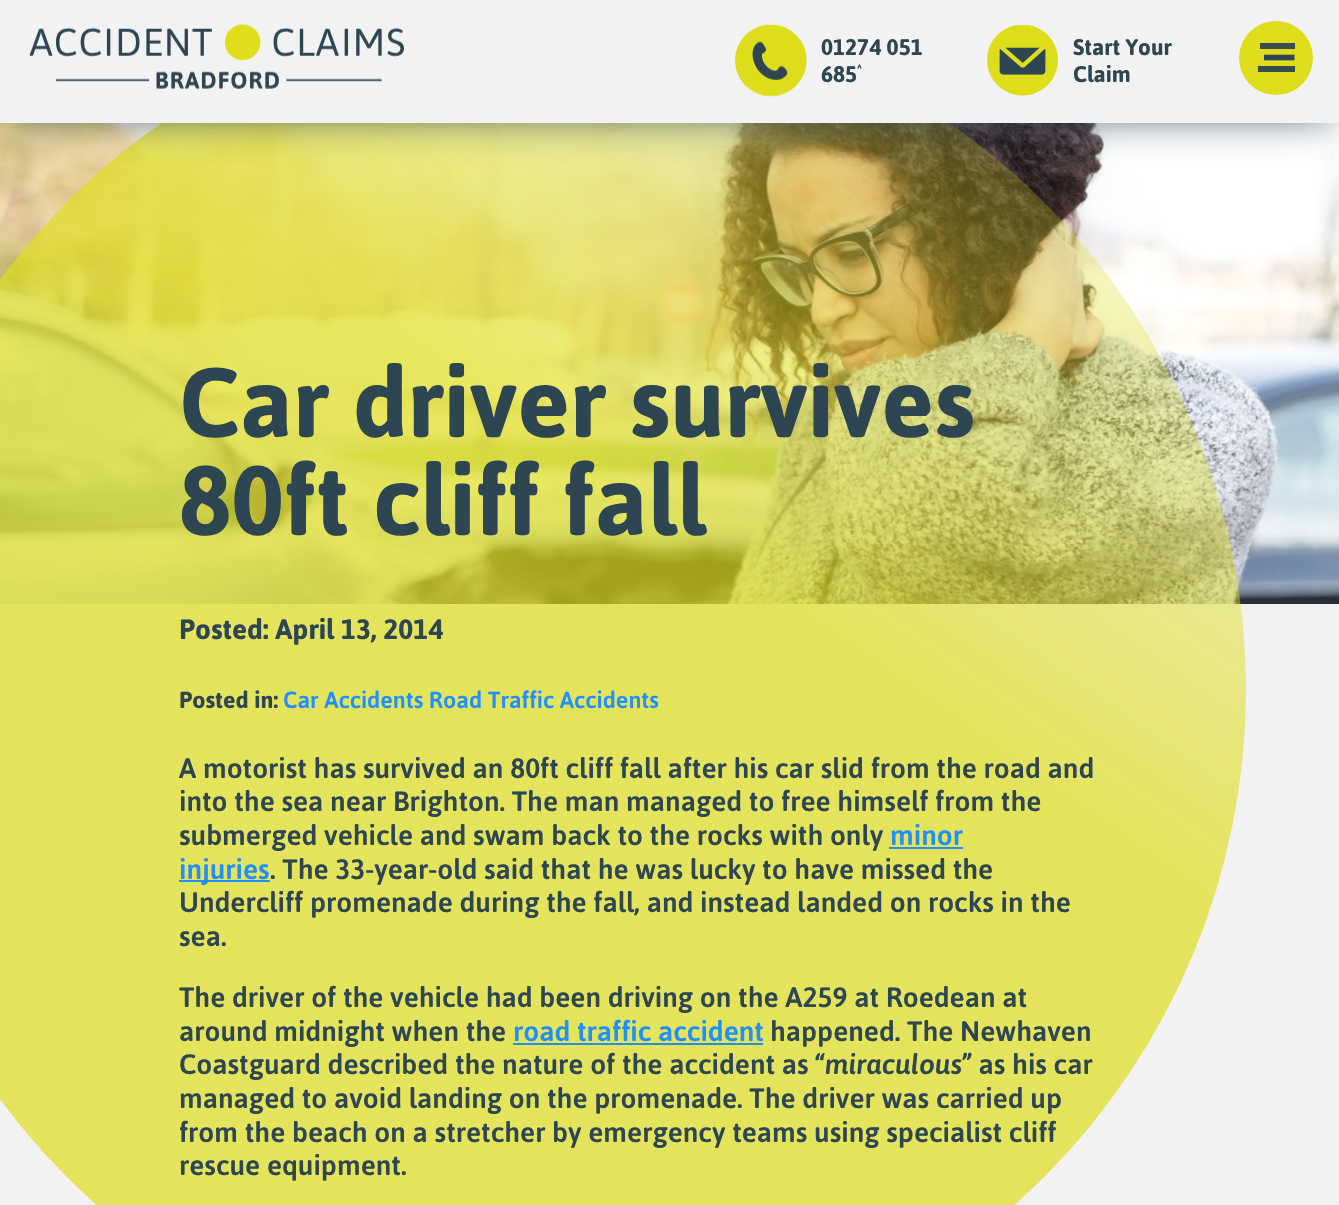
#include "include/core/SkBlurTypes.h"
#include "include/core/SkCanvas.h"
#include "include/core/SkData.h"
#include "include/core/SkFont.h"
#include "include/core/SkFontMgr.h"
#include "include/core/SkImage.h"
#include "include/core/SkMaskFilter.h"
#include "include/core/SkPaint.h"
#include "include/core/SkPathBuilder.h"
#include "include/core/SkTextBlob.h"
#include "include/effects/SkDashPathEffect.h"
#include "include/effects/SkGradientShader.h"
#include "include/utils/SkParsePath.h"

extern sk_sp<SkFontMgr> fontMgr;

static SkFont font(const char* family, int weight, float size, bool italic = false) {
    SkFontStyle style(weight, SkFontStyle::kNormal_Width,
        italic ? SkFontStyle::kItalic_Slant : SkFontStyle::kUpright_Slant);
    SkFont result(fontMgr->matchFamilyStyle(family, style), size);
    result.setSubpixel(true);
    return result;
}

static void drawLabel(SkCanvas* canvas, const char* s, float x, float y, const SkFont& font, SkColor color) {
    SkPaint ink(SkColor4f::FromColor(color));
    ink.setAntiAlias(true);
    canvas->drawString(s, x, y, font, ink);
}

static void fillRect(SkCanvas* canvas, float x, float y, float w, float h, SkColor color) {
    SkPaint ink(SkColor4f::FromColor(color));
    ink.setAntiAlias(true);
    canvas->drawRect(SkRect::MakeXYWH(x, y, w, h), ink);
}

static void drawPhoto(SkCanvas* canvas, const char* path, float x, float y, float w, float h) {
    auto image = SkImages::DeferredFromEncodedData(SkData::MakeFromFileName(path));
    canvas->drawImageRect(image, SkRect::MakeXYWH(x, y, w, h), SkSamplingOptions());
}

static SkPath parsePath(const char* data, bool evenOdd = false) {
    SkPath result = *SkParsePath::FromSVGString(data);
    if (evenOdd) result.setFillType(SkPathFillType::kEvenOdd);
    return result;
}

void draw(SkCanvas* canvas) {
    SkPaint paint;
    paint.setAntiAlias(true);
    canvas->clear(0xFFFFFFFF);
    drawPhoto(canvas, "assets/img4.png", 0, 123, 1339, 481);
    fillRect(canvas, 0, 604, 1339, 601, 0xFFF2F2F2);
    {
        const SkColor colors[] = {0xB3DEDD1C, 0x00DEDD1C};
        const float stops[] = {0.6f, 1};
        const SkPoint ends[] = {{4.5f, 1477}, {1107, -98}};
        paint.setShader(SkGradientShader::MakeLinear(ends, colors, stops, 2, SkTileMode::kClamp));
        paint.setAlpha(255);
    }
    canvas->drawRoundRect(SkRect::MakeXYWH(-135, 0, 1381, 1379), 689.5f, 689.5f, paint);
    paint.setShader(nullptr);
    paint.setColor(0xFF2E4552);
    paint.setMaskFilter(SkMaskFilter::MakeBlur(kNormal_SkBlurStyle, 22));
    canvas->drawRect(SkRect::MakeXYWH(9, 9, 1323, 105), paint);
    paint.setMaskFilter(nullptr);
    fillRect(canvas, 0, 0, 1339, 123, 0xFFF2F2F2);
    drawPhoto(canvas, "assets/img1.png", 29, 23, 375, 66);
    drawPhoto(canvas, "assets/img2.png", 735, 24, 72, 73);
    SkFont font1 = font("Asap", 700, 22.5f);
    drawLabel(canvas, "01274 051", 821, 55, font1, 0xFF2E4552);
    drawLabel(canvas, "685", 821, 82, font1, 0xFF2E4552);
    SkFont font2 = font("Asap", 700, 11);
    drawLabel(canvas, "^", 857, 72, font2, 0xFF2E4552);
    drawPhoto(canvas, "assets/img3.png", 987, 25, 71, 71);
    drawLabel(canvas, "Start Your", 1073, 55, font1, 0xFF2E4552);
    drawLabel(canvas, "Claim", 1073, 82, font1, 0xFF2E4552);
    paint.setColor(0xFFDEDD1C);
    canvas->drawCircle(1276, 58, 37, paint);
    fillRect(canvas, 1260, 43, 35, 6, 0xFF374D4F);
    paint.setStroke(true);
    paint.setStrokeWidth(5.7f);
    paint.setColor(0xFF2E4552);
    canvas->drawPath(parsePath("M1264 57.5H1294.5"), paint);
    fillRect(canvas, 1258, 66, 37, 6, 0xFF374D4F);
    SkFont font3 = font("Asap", 700, 98);
    drawLabel(canvas, "Car driver survives", 179, 437, font3, 0xFF2E4552);
    drawLabel(canvas, "80ft cliff fall", 179, 535, font3, 0xFF2E4552);
    SkFont font4 = font("Asap", 700, 28);
    drawLabel(canvas, "Posted: April 13, 2014", 179, 639, font4, 0xFF2E4552);
    SkFont font5 = font("Asap", 700, 23.25f);
    drawLabel(canvas, "Posted in:", 179, 708, font5, 0xFF2E4552);
    SkFont font6 = font("Asap", 500, 23.25f);
    drawLabel(canvas, "Car Accidents Road Traffic Accidents", 283, 708, font6, 0xFF1E90FF);
    SkFont font7 = font("Asap", 500, 28);
    drawLabel(canvas, "A motorist has survived an 80ft cliff fall after his car slid from the road and", 179, 778, font7, 0xFF2E4552);
    drawLabel(canvas, "into the sea near Brighton. The man managed to free himself from the", 179, 811, font7, 0xFF2E4552);
    drawLabel(canvas, "submerged vehicle and swam back to the rocks with only", 179, 845, font7, 0xFF2E4552);
    drawLabel(canvas, "minor", 890, 845, font7, 0xFF1E90FF);
    fillRect(canvas, 889, 847, 74, 2, 0xFF1E90FF);
    fillRect(canvas, 179, 880, 91, 2, 0xFF1E90FF);
    drawLabel(canvas, "injuries", 179, 879, font7, 0xFF1E90FF);
    drawLabel(canvas, ". The 33-year-old said that he was lucky to have missed the", 270, 879, font7, 0xFF2E4552);
    drawLabel(canvas, "Undercliff promenade during the fall, and instead landed on rocks in the", 179, 912, font7, 0xFF2E4552);
    drawLabel(canvas, "sea.", 179, 946, font7, 0xFF2E4552);
    drawLabel(canvas, "The driver of the vehicle had been driving on the A259 at Roedean at", 179, 1007, font7, 0xFF2E4552);
    drawLabel(canvas, "around midnight when the", 179, 1041, font7, 0xFF2E4552);
    drawLabel(canvas, "road traffic accident", 513, 1041, font7, 0xFF1E90FF);
    fillRect(canvas, 513, 1043, 250, 2, 0xFF1E90FF);
    drawLabel(canvas, "happened. The Newhaven", 770, 1041, font7, 0xFF2E4552);
    drawLabel(canvas, "Coastguard described the nature of the accident as “", 179, 1074, font7, 0xFF2E4552);
    SkFont font8 = font("Asap", 500, 28, true);
    drawLabel(canvas, "miraculous", 825, 1074, font8, 0xFF2E4552);
    drawLabel(canvas, "” as his car", 962, 1074, font7, 0xFF2E4552);
    drawLabel(canvas, "managed to avoid landing on the promenade. The driver was carried up", 179, 1108, font7, 0xFF2E4552);
    drawLabel(canvas, "from the beach on a stretcher by emergency teams using specialist cliff", 179, 1142, font7, 0xFF2E4552);
    drawLabel(canvas, "rescue equipment.", 179, 1175, font7, 0xFF2E4552);
}
